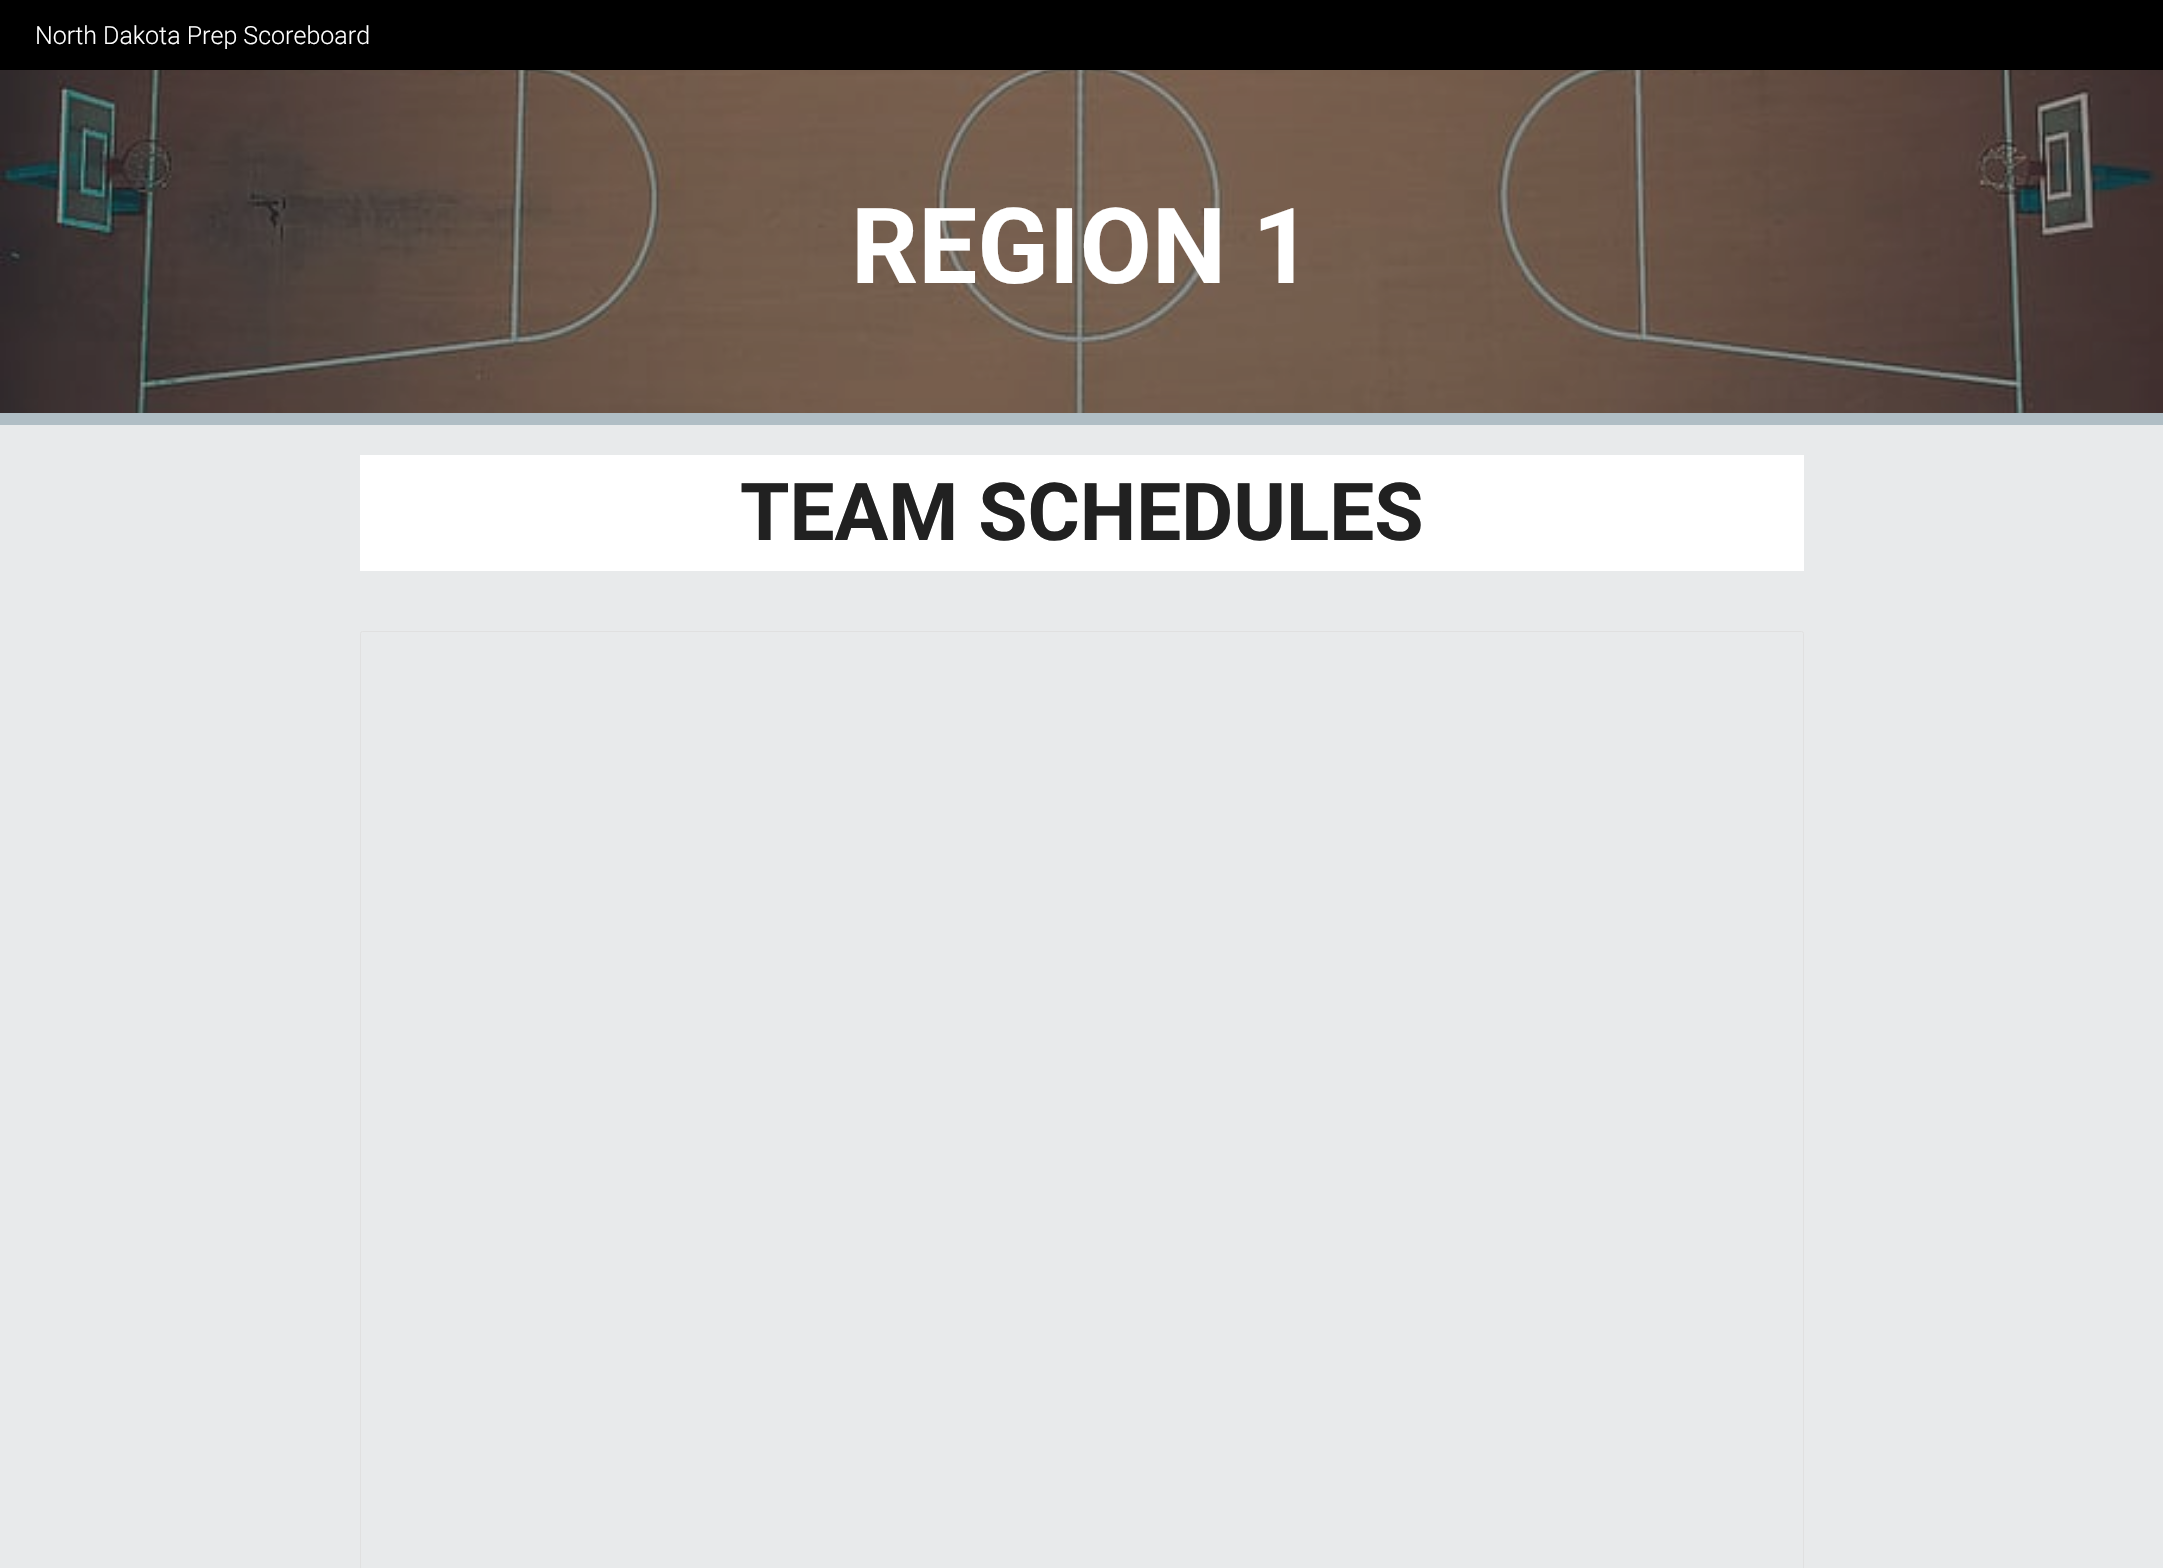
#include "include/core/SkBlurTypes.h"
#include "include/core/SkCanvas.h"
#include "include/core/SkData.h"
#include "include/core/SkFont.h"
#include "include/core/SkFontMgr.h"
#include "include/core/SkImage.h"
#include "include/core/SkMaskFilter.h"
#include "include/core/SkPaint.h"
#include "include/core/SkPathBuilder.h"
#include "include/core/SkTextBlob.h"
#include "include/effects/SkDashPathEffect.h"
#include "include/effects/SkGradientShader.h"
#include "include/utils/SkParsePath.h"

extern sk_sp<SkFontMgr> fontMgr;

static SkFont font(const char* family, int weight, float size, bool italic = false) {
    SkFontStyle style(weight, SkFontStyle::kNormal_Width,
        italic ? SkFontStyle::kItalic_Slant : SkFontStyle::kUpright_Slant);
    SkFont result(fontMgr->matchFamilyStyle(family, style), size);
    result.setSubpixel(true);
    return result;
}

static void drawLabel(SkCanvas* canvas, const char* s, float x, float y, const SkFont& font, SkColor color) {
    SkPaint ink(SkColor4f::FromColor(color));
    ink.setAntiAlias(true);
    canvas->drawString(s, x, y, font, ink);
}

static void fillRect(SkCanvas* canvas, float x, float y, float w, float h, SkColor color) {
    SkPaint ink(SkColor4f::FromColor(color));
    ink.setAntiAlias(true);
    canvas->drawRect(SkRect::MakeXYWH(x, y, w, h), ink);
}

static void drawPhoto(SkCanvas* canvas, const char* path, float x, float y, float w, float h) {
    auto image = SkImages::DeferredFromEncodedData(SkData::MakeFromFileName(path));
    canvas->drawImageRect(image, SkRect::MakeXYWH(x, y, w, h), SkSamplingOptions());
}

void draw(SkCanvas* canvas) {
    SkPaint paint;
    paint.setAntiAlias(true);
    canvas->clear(0xFFE8EAEB);
    fillRect(canvas, 0, 0, 2163, 70, 0xFF000000);
    SkFont font1 = font("Roboto", 300, 25);
    drawLabel(canvas, "North Dakota Prep Scoreboard", 35, 44, font1, 0xFFFFFFFF);
    drawPhoto(canvas, "assets/img1.png", 0, 70, 2163, 343);
    fillRect(canvas, 0, 413, 2163, 12, 0xFFB0BEC5);
    SkFont font2 = font("Roboto", 700, 105);
    drawLabel(canvas, "REGION 1", 851, 283, font2, 0xFFFFFFFF);
    fillRect(canvas, 360, 455, 1444, 116, 0xFFFFFFFF);
    SkFont font3 = font("Roboto", 700, 80);
    drawLabel(canvas, "TEAM SCHEDULES", 740, 540, font3, 0xFF212121);
    paint.setStroke(true);
    paint.setStrokeWidth(1);
    paint.setColor(0xFFE0E0E0);
    canvas->drawRoundRect(SkRect::MakeXYWH(360.5f, 631.5f, 1443, 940), 2, 2, paint);
}
